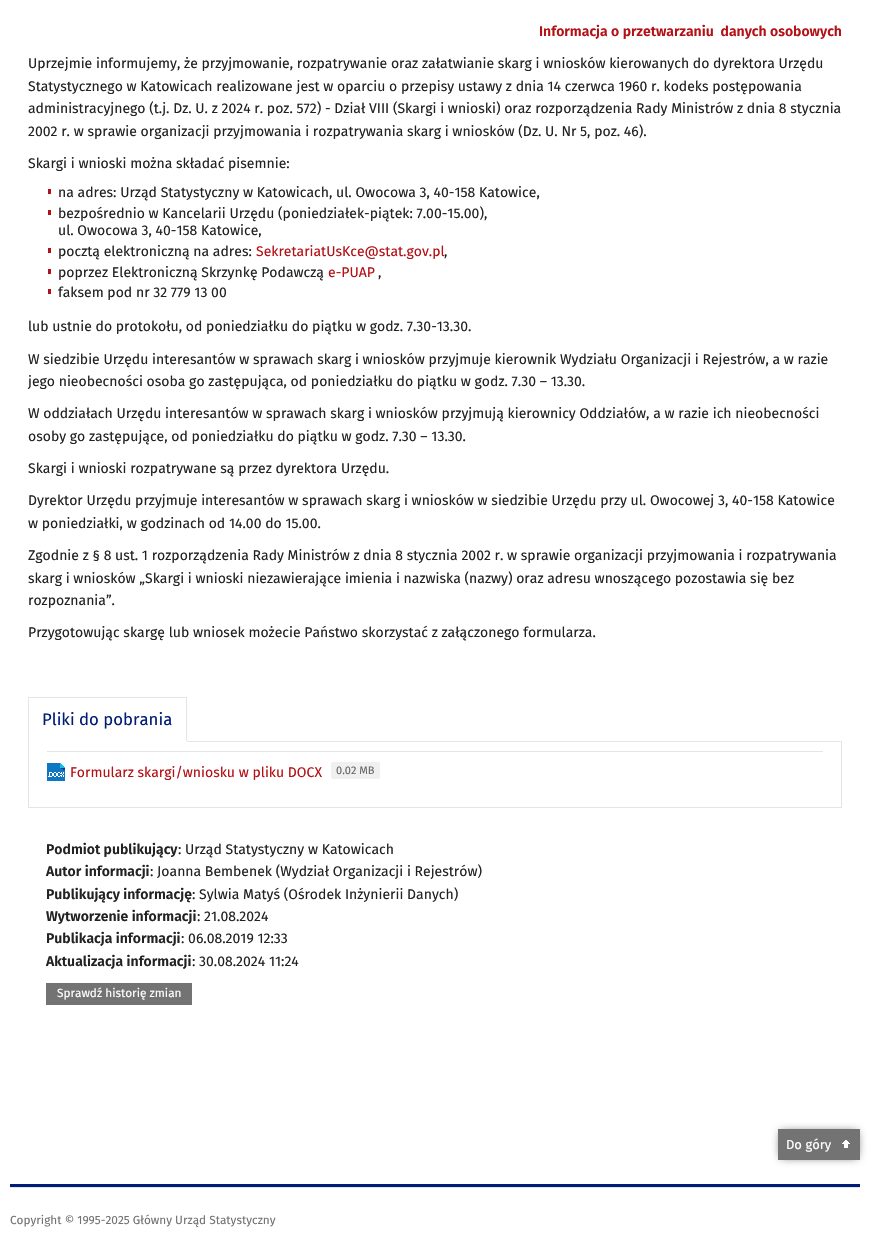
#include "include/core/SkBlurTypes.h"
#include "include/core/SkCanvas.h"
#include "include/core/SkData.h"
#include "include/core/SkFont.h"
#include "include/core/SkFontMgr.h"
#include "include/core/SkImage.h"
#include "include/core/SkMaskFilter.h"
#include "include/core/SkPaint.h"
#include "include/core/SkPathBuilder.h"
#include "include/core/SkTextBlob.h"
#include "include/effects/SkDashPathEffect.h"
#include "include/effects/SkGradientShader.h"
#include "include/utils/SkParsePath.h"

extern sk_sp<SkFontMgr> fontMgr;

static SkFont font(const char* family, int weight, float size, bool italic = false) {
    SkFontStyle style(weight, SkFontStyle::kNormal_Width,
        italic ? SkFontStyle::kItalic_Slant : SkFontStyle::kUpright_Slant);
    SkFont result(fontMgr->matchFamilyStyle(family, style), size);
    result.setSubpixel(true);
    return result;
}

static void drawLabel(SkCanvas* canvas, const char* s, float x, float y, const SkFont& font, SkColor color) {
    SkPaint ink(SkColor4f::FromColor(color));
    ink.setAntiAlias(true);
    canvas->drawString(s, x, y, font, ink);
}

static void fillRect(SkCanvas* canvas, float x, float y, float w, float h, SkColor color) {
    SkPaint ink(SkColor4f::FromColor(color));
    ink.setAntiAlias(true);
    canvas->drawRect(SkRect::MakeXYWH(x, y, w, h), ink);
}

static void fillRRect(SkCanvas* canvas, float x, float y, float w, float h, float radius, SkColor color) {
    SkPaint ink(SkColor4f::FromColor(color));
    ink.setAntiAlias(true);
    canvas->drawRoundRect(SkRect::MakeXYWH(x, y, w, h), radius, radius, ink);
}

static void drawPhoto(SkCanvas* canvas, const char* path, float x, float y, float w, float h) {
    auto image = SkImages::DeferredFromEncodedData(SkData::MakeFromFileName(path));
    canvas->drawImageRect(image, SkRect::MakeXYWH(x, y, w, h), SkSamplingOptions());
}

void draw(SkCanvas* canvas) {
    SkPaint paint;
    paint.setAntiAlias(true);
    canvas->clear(0xFFFFFFFF);
    SkFont font1 = font("Fira Sans", 600, 14);
    drawLabel(canvas, "Informacja o przetwarzaniu  danych osobowych", 539, 36, font1, 0xFFB41116);
    SkFont font2 = font("Fira Sans", 400, 14);
    drawLabel(canvas, "Uprzejmie informujemy, że przyjmowanie, rozpatrywanie oraz załatwianie skarg i wniosków kierowanych do dyrektora Urzędu", 28, 68, font2, 0xFF222222);
    drawLabel(canvas, "Statystycznego w Katowicach realizowane jest w oparciu o przepisy ustawy z dnia 14 czerwca 1960 r. kodeks postępowania", 28, 91, font2, 0xFF222222);
    drawLabel(canvas, "administracyjnego (t.j. Dz. U. z 2024 r. poz. 572) - Dział VIII (Skargi i wnioski) oraz rozporządzenia Rady Ministrów z dnia 8 stycznia", 28, 113, font2, 0xFF222222);
    drawLabel(canvas, "2002 r. w sprawie organizacji przyjmowania i rozpatrywania skarg i wniosków (Dz. U. Nr 5, poz. 46).", 28, 136, font2, 0xFF222222);
    drawLabel(canvas, "Skargi i wnioski można składać pisemnie:", 28, 168, font2, 0xFF222222);
    fillRect(canvas, 48, 189, 3, 5, 0xFFB41017);
    drawLabel(canvas, "na adres: Urząd Statystyczny w Katowicach, ul. Owocowa 3, 40-158 Katowice,", 58, 197, font2, 0xFF222222);
    fillRect(canvas, 48, 210, 3, 5, 0xFFB41017);
    drawLabel(canvas, "bezpośrednio w Kancelarii Urzędu (poniedziałek-piątek: 7.00-15.00),", 58, 218, font2, 0xFF222222);
    drawLabel(canvas, "ul. Owocowa 3, 40-158 Katowice,", 58, 235, font2, 0xFF222222);
    fillRect(canvas, 48, 248, 3, 5, 0xFFB41017);
    drawLabel(canvas, "pocztą elektroniczną na adres:", 58, 256, font2, 0xFF222222);
    drawLabel(canvas, "SekretariatUsKce@stat.gov.pl", 256, 256, font2, 0xFFB41116);
    drawLabel(canvas, ",", 444, 256, font2, 0xFF222222);
    fillRect(canvas, 48, 269, 3, 5, 0xFFB41017);
    drawLabel(canvas, "poprzez Elektroniczną Skrzynkę Podawczą", 58, 277, font2, 0xFF222222);
    drawLabel(canvas, "e-PUAP", 328, 277, font2, 0xFFB41116);
    drawLabel(canvas, ",", 378, 277, font2, 0xFF222222);
    fillRect(canvas, 48, 289, 3, 5, 0xFFB41017);
    drawLabel(canvas, "faksem pod nr 32 779 13 00", 58, 297, font2, 0xFF222222);
    drawLabel(canvas, "lub ustnie do protokołu, od poniedziałku do piątku w godz. 7.30-13.30.", 28, 331, font2, 0xFF222222);
    drawLabel(canvas, "W siedzibie Urzędu interesantów w sprawach skarg i wniosków przyjmuje kierownik Wydziału Organizacji i Rejestrów, a w razie", 28, 364, font2, 0xFF222222);
    drawLabel(canvas, "jego nieobecności osoba go zastępująca, od poniedziałku do piątku w godz. 7.30 – 13.30.", 28, 386, font2, 0xFF222222);
    drawLabel(canvas, "W oddziałach Urzędu interesantów w sprawach skarg i wniosków przyjmują kierownicy Oddziałów, a w razie ich nieobecności", 28, 418, font2, 0xFF222222);
    drawLabel(canvas, "osoby go zastępujące, od poniedziałku do piątku w godz. 7.30 – 13.30.", 28, 441, font2, 0xFF222222);
    drawLabel(canvas, "Skargi i wnioski rozpatrywane są przez dyrektora Urzędu.", 28, 473, font2, 0xFF222222);
    drawLabel(canvas, "Dyrektor Urzędu przyjmuje interesantów w sprawach skarg i wniosków w siedzibie Urzędu przy ul. Owocowej 3, 40-158 Katowice", 28, 505, font2, 0xFF222222);
    drawLabel(canvas, "w poniedziałki, w godzinach od 14.00 do 15.00.", 28, 528, font2, 0xFF222222);
    drawLabel(canvas, "Zgodnie z § 8 ust. 1 rozporządzenia Rady Ministrów z dnia 8 stycznia 2002 r. w sprawie organizacji przyjmowania i rozpatrywania", 28, 560, font2, 0xFF222222);
    drawLabel(canvas, "skarg i wniosków „Skargi i wnioski niezawierające imienia i nazwiska (nazwy) oraz adresu wnoszącego pozostawia się bez", 28, 583, font2, 0xFF222222);
    drawLabel(canvas, "rozpoznania”.", 28, 605, font2, 0xFF222222);
    drawLabel(canvas, "Przygotowując skargę lub wniosek możecie Państwo skorzystać z załączonego formularza.", 28, 637, font2, 0xFF222222);
    fillRect(canvas, 28, 697, 159, 1, 0xFFE5E5E5);
    paint.setStroke(true);
    paint.setStrokeWidth(1);
    paint.setColor(0xFFE5E5E5);
    canvas->drawRect(SkRect::MakeXYWH(28.5f, 741.5f, 813, 66), paint);
    fillRect(canvas, 186, 697, 1, 45, 0xFFE5E5E5);
    fillRect(canvas, 28, 741, 159, 1, 0xFFFFFFFF);
    fillRect(canvas, 28, 697, 1, 45, 0xFFE5E5E5);
    SkFont font3 = font("Fira Sans", 400, 16.75f);
    drawLabel(canvas, "Pliki do pobrania", 42, 725, font3, 0xFF001D77);
    fillRect(canvas, 47, 751, 776, 1, 0xFFE5E5E5);
    drawPhoto(canvas, "assets/img1.png", 47, 763, 18, 18);
    drawLabel(canvas, "Formularz skargi/wniosku w pliku DOCX", 70, 777, font2, 0xFFB41116);
    fillRRect(canvas, 331, 762, 49, 17, 2, 0xFFF0F0F0);
    SkFont font4 = font("Fira Sans", 400, 11);
    drawLabel(canvas, "0.02 MB", 336, 774, font4, 0xFF666666);
    drawLabel(canvas, "Podmiot publikujący", 46, 854, font1, 0xFF222222);
    drawLabel(canvas, ": Urząd Statystyczny w Katowicach", 178, 854, font2, 0xFF222222);
    drawLabel(canvas, "Autor informacji", 46, 876, font1, 0xFF222222);
    drawLabel(canvas, ": Joanna Bembenek (Wydział Organizacji i Rejestrów)", 150, 876, font2, 0xFF222222);
    drawLabel(canvas, "Publikujący informację", 46, 899, font1, 0xFF222222);
    drawLabel(canvas, ": Sylwia Matyś (Ośrodek Inżynierii Danych)", 192, 899, font2, 0xFF222222);
    drawLabel(canvas, "Wytworzenie informacji", 46, 921, font1, 0xFF222222);
    drawLabel(canvas, ": 21.08.2024", 197, 921, font2, 0xFF222222);
    drawLabel(canvas, "Publikacja informacji", 46, 943, font1, 0xFF222222);
    drawLabel(canvas, ": 06.08.2019 12:33", 181, 943, font2, 0xFF222222);
    drawLabel(canvas, "Aktualizacja informacji", 46, 966, font1, 0xFF222222);
    drawLabel(canvas, ": 30.08.2024 11:24", 192, 966, font2, 0xFF222222);
    fillRect(canvas, 46, 983, 146, 22, 0xFF737373);
    SkFont font5 = font("Fira Sans", 400, 11.8f);
    drawLabel(canvas, "Sprawdź historię zmian", 57, 997, font5, 0xFFFFFFFF);
    paint.setStroke(false);
    paint.setColor(0xB3000000);
    paint.setMaskFilter(SkMaskFilter::MakeBlur(kNormal_SkBlurStyle, 5));
    canvas->drawRect(SkRect::MakeXYWH(781, 1132, 76, 25), paint);
    paint.setMaskFilter(nullptr);
    fillRect(canvas, 778, 1129, 82, 31, 0xFF737373);
    SkFont font6 = font("Fira Sans", 400, 13);
    drawLabel(canvas, "Do góry", 786, 1149, font6, 0xFFFFFFFF);
    drawPhoto(canvas, "assets/img2.png", 842, 1140, 8, 8);
    fillRect(canvas, 10, 1184, 850, 3, 0xFF001D77);
    fillRect(canvas, 10, 1187, 850, 1, 0xFFE5E5E5);
    drawLabel(canvas, "Copyright © 1995-2025 Główny Urząd Statystyczny", 10, 1224, font5, 0xFF737373);
}
